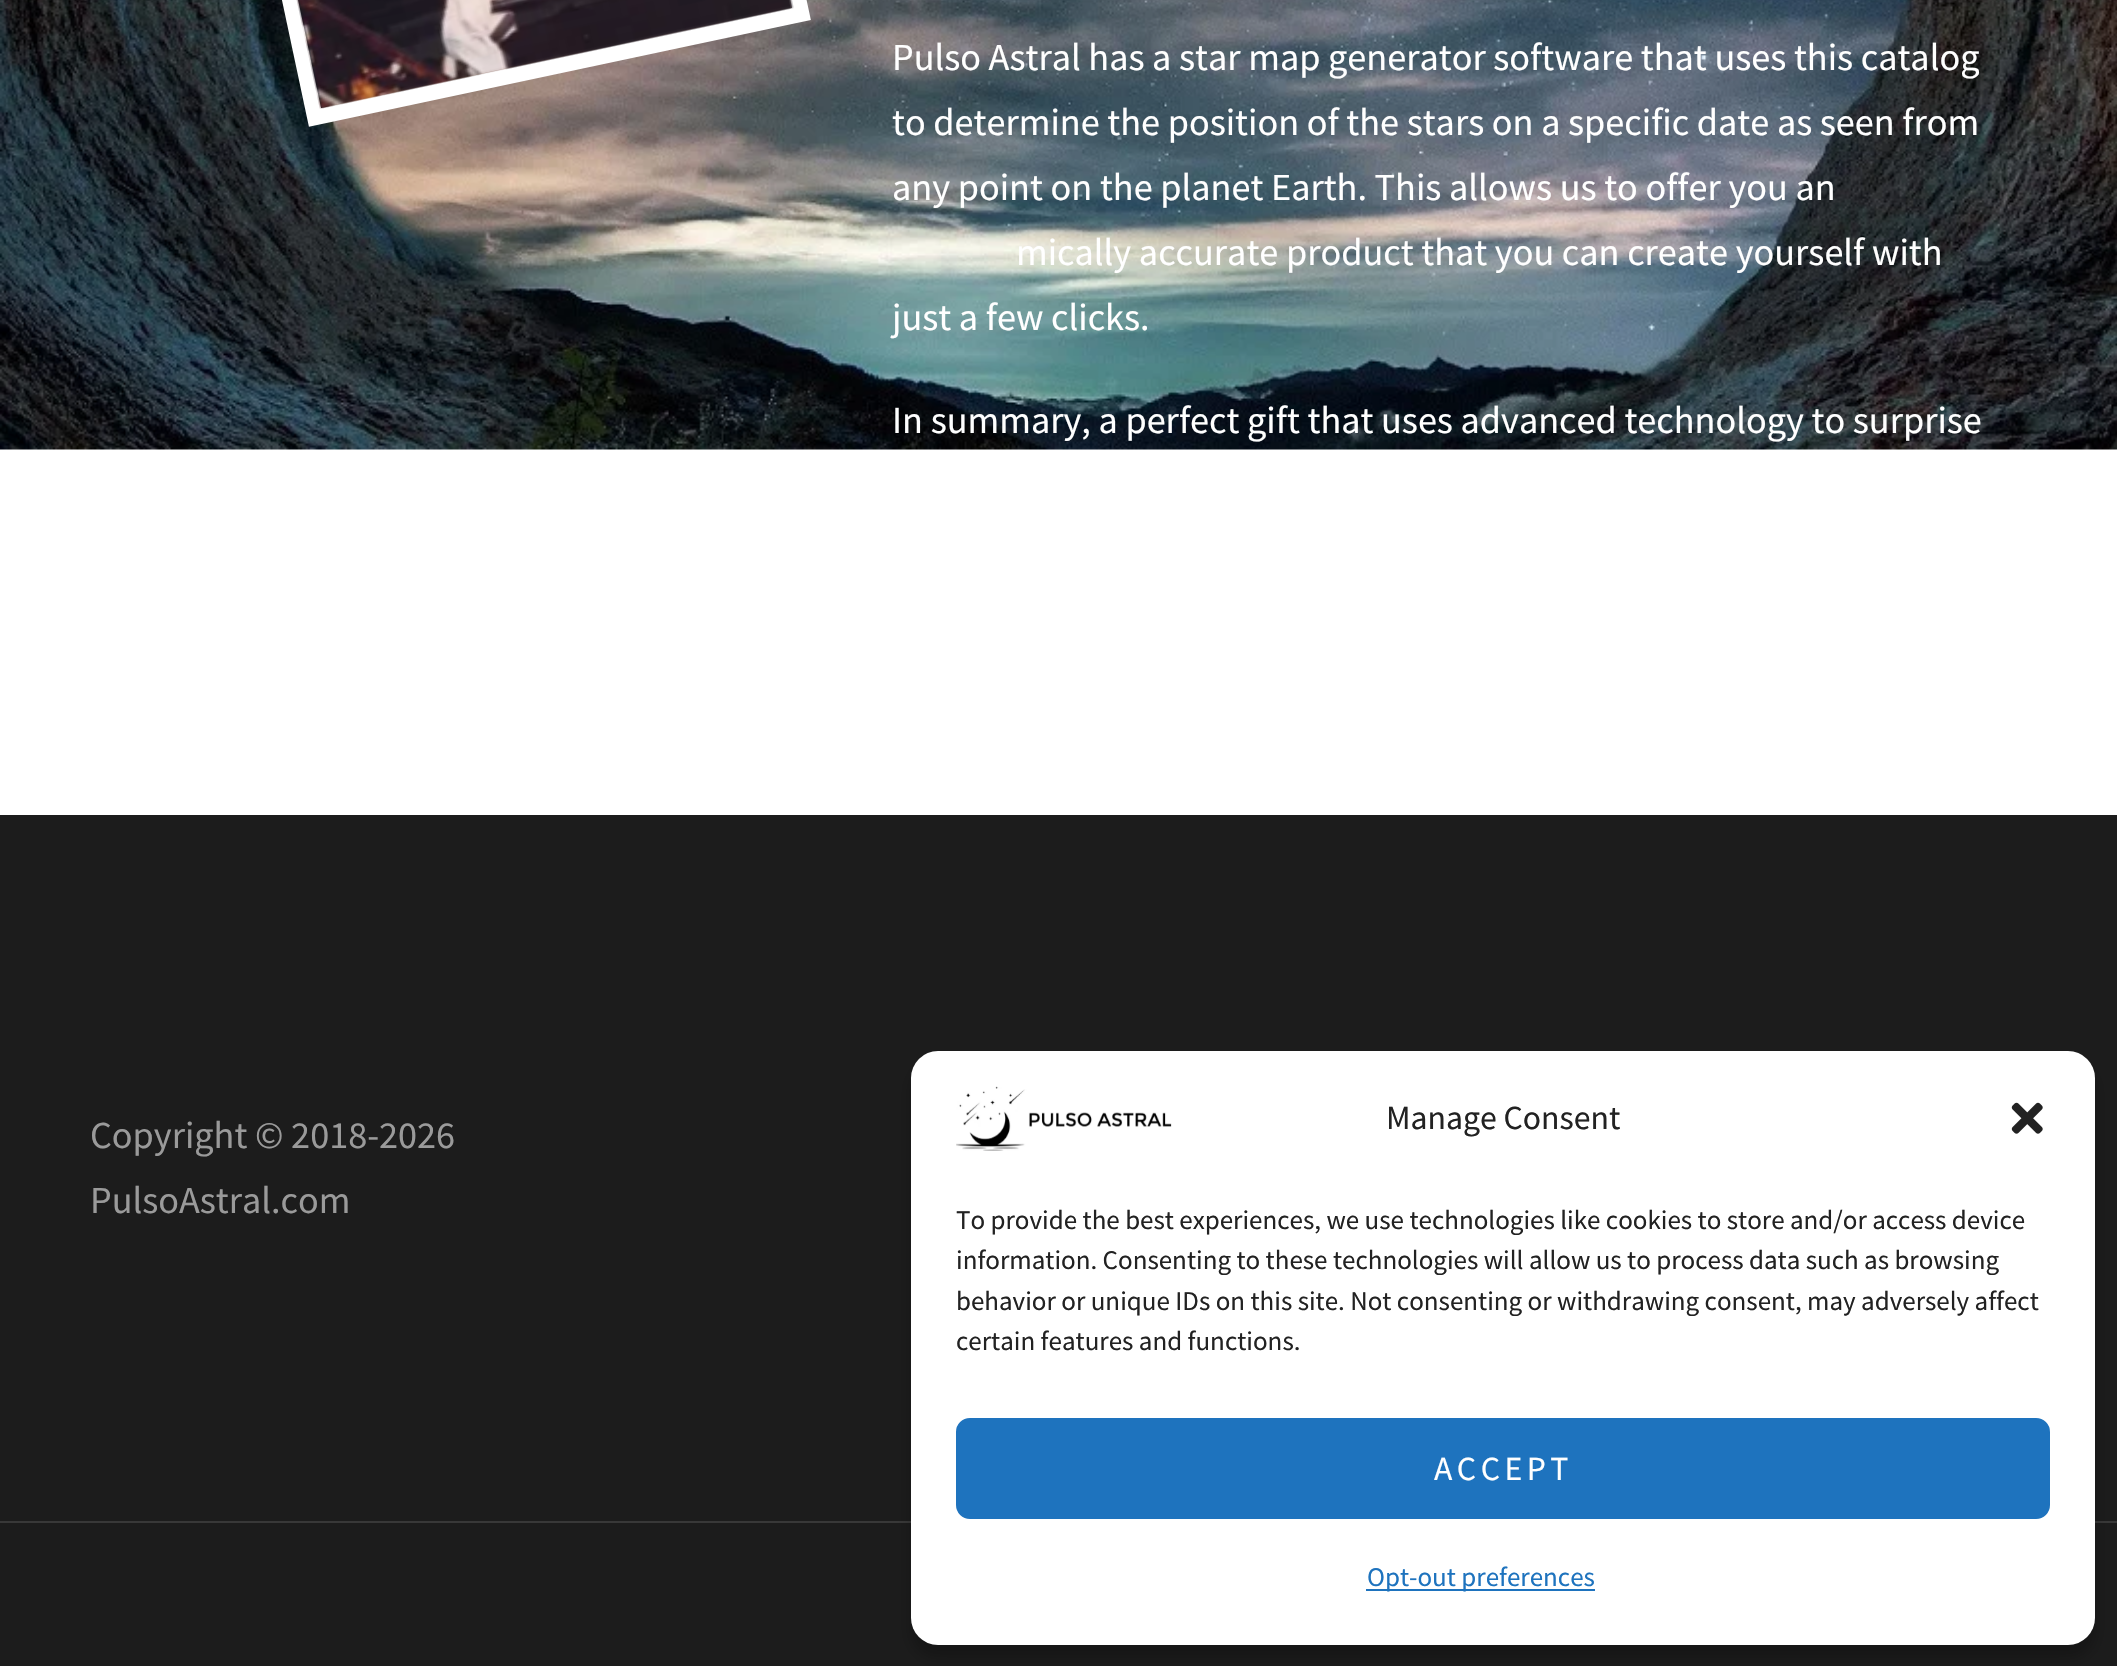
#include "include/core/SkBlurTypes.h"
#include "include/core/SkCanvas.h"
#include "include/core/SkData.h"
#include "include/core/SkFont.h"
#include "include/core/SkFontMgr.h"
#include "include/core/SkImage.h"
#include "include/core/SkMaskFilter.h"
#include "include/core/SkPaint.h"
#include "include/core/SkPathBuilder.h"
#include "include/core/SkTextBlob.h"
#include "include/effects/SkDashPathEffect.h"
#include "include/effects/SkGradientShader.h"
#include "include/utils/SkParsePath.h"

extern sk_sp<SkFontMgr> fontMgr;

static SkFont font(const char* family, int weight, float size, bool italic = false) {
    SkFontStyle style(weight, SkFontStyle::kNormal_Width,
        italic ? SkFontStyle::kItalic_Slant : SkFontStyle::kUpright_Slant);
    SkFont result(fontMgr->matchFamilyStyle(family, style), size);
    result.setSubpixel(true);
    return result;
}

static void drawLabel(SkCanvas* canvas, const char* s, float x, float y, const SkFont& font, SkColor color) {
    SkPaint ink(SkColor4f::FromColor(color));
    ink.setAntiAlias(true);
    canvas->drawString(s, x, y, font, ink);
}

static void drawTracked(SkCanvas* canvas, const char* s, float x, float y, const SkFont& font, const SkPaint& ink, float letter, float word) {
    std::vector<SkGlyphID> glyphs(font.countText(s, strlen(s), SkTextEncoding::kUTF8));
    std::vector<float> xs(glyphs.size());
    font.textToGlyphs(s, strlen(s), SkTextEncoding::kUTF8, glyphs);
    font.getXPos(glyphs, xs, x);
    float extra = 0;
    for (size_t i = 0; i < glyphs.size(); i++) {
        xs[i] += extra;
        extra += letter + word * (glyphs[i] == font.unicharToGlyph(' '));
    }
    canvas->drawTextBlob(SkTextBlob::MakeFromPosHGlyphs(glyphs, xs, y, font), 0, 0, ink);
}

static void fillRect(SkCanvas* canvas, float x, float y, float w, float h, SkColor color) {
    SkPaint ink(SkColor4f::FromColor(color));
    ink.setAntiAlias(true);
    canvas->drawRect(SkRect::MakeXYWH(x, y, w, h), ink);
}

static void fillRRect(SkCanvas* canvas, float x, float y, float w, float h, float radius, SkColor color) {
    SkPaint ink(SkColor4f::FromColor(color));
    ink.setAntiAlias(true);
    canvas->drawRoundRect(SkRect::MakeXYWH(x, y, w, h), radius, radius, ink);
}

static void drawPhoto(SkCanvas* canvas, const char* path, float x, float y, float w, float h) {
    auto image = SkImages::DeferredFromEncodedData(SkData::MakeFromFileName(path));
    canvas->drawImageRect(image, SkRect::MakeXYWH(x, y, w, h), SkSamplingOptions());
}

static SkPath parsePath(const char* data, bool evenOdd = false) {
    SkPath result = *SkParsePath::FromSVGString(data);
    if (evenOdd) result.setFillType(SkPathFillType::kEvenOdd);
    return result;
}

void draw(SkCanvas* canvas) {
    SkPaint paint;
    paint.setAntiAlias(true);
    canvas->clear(0xFF1C1C1C);
    fillRect(canvas, 0, 449, 2117, 366, 0xFFFFFFFF);
    drawPhoto(canvas, "assets/img1.png", 0, 0, 2117, 450);
    paint.setStroke(true);
    paint.setStrokeWidth(15.8f);
    paint.setColor(0xFFFFFFFF);
    canvas->drawPath(parsePath("M180-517.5L666.5-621L801.5 14L315 117.5Z"), paint);
    drawPhoto(canvas, "assets/img2.png", 296, 0, 498, 109);
    SkFont font1 = font("Source Sans Pro", 400, 38.25f);
    drawLabel(canvas, "Pulso Astral has a star map generator software that uses this catalog", 892, 70, font1, 0xFFFFFFFF);
    drawLabel(canvas, "to determine the position of the stars on a specific date as seen from", 892, 135, font1, 0xFFFFFFFF);
    drawLabel(canvas, "any point on the planet Earth. This allows us to offer you an", 892, 200, font1, 0xFFFFFFFF);
    drawLabel(canvas, "mically accurate product that you can create yourself with", 1016, 265, font1, 0xFFFFFFFF);
    drawLabel(canvas, "just a few clicks.", 892, 330, font1, 0xFFFFFFFF);
    drawLabel(canvas, "In summary, a perfect gift that uses advanced technology to surprise", 892, 433, font1, 0xFFFFFFFF);
    drawLabel(canvas, "Copyright © 2018-2026", 90, 1148, font1, 0xFF9A9A9A);
    drawLabel(canvas, "PulsoAstral.com", 90, 1213, font1, 0xFF9A9A9A);
    fillRect(canvas, 0, 1521, 2117, 2, 0xFF383838);
    paint.setStroke(false);
    paint.setColor(0x3B000000);
    paint.setMaskFilter(SkMaskFilter::MakeBlur(kNormal_SkBlurStyle, 7));
    canvas->drawRoundRect(SkRect::MakeXYWH(911, 1064, 1184, 594), 27, 27, paint);
    paint.setMaskFilter(nullptr);
    fillRRect(canvas, 911, 1051, 1184, 594, 27, 0xFFFFFFFF);
    drawPhoto(canvas, "assets/img3.png", 956, 1086, 216, 65);
    SkFont font2 = font("Source Sans Pro", 400, 33.75f);
    drawLabel(canvas, "Manage Consent", 1386, 1129, font2, 0xFF222222);
    drawPhoto(canvas, "assets/img4.png", 2011, 1102, 32, 32);
    SkFont font3 = font("Source Sans Pro", 400, 27);
    drawLabel(canvas, "To provide the best experiences, we use technologies like cookies to store and/or access device", 956, 1229, font3, 0xFF222222);
    drawLabel(canvas, "information. Consenting to these technologies will allow us to process data such as browsing", 956, 1269, font3, 0xFF222222);
    drawLabel(canvas, "behavior or unique IDs on this site. Not consenting or withdrawing consent, may adversely affect", 956, 1310, font3, 0xFF222222);
    drawLabel(canvas, "certain features and functions.", 956, 1350, font3, 0xFF222222);
    paint.setColor(0xFF1E73BE);
    canvas->drawRoundRect(SkRect::MakeXYWH(957, 1419, 1092, 99), 13, 13, paint);
    paint.setStroke(true);
    paint.setStrokeWidth(2);
    canvas->drawRoundRect(SkRect::MakeXYWH(957, 1419, 1092, 99), 13, 13, paint);
    paint.setStroke(false);
    paint.setColor(0xFFFFFFFF);
    drawTracked(canvas, "ACCEPT", 1434, 1480, font2, paint, 4.5f, 0);
    fillRect(canvas, 1366, 1589, 229, 2, 0xFF1E73BE);
    drawLabel(canvas, "Opt-out preferences", 1367, 1586, font3, 0xFF1E73BE);
}
